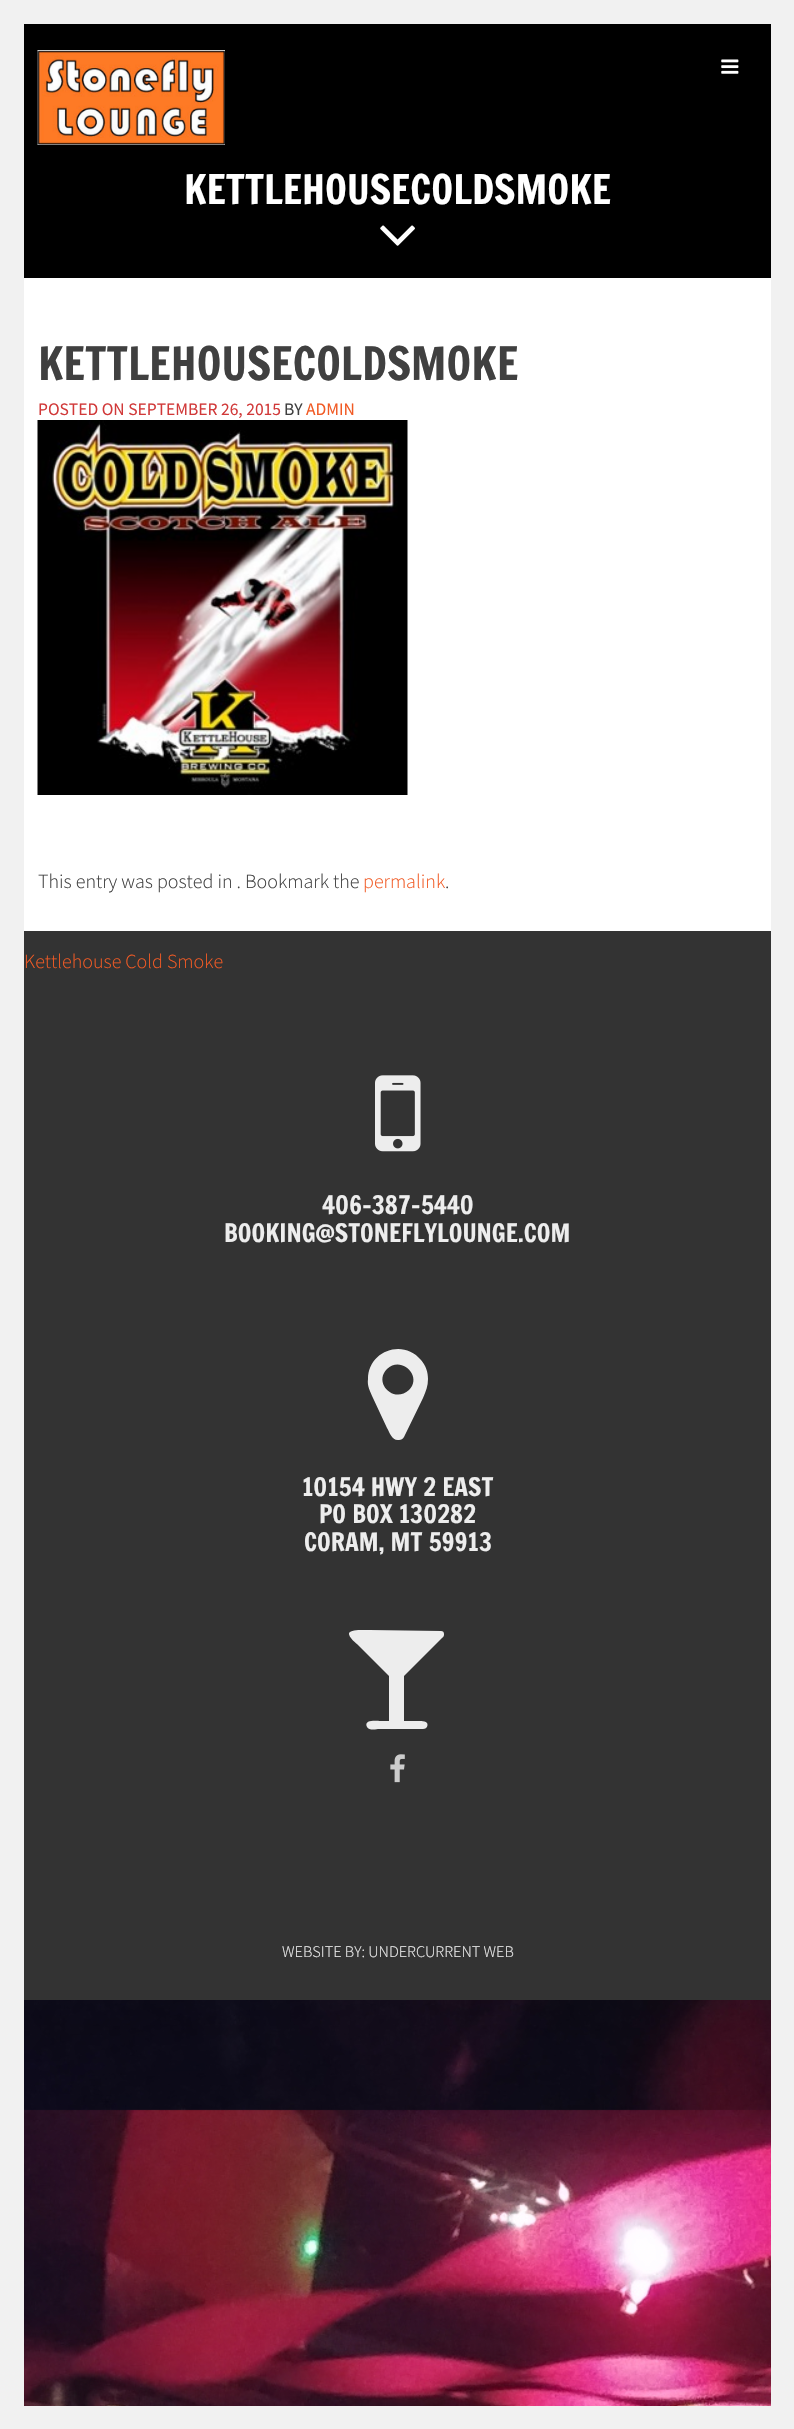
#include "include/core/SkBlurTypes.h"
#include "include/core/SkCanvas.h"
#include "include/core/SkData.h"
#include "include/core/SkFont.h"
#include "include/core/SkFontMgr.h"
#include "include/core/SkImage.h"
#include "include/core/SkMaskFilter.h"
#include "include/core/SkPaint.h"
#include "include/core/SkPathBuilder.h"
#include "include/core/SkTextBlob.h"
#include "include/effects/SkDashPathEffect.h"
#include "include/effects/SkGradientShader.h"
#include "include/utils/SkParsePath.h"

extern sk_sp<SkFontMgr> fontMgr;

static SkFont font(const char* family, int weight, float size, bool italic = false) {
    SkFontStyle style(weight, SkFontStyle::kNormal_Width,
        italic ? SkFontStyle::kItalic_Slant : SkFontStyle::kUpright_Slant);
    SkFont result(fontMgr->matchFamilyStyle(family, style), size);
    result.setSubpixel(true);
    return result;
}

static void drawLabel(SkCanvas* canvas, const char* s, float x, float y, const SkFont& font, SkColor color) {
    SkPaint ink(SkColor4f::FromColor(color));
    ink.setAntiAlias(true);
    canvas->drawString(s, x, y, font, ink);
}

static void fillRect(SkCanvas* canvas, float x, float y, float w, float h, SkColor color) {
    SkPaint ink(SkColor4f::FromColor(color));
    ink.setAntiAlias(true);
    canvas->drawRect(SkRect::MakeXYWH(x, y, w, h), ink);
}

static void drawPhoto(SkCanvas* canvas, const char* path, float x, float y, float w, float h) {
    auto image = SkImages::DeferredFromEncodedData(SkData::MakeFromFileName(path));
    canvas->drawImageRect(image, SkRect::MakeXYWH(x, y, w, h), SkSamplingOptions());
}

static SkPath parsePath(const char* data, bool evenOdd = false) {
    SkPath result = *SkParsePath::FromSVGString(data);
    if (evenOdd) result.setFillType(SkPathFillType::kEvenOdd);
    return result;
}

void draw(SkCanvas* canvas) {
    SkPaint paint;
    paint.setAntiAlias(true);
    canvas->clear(0xFFFFFFFF);
    drawPhoto(canvas, "assets/img1.png", 24, 2000, 747, 406);
    fillRect(canvas, 0, 0, 24, 2429, 0xFFF1F1F1);
    fillRect(canvas, 24, 0, 747, 24, 0xFFF1F1F1);
    fillRect(canvas, 771, 0, 23, 2406, 0xFFF1F1F1);
    fillRect(canvas, 24, 24, 747, 254, 0xFF000000);
    drawPhoto(canvas, "assets/img2.png", 37, 50, 188, 95);
    drawPhoto(canvas, "assets/img3.png", 721, 59, 18, 15);
    SkFont font1 = font("Francois One", 400, 40);
    drawLabel(canvas, "KETTLEHOUSECOLDSMOKE", 184, 204, font1, 0xFFFFFFFF);
    drawPhoto(canvas, "assets/img4.png", 380, 225, 35, 21);
    SkFont font2 = font("Francois One", 400, 45);
    drawLabel(canvas, "KETTLEHOUSECOLDSMOKE", 38, 380, font2, 0xFF404040);
    SkFont font3 = font("Source Sans Pro", 400, 17.5f);
    drawLabel(canvas, "POSTED ON SEPTEMBER 26, 2015", 38, 415, font3, 0xFFD13939);
    drawLabel(canvas, "BY", 284, 415, font3, 0xFF404040);
    drawLabel(canvas, "ADMIN", 306, 415, font3, 0xFFF15A24);
    drawPhoto(canvas, "assets/img5.png", 37, 420, 371, 375);
    SkFont font4 = font("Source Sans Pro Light", 300, 20);
    drawLabel(canvas, "This entry was posted in . Bookmark the", 38, 888, font4, 0xFF404040);
    drawLabel(canvas, "permalink", 363, 888, font4, 0xFFF15A24);
    drawLabel(canvas, ".", 445, 888, font4, 0xFF404040);
    fillRect(canvas, 24, 931, 747, 1069, 0xFF333333);
    drawLabel(canvas, "Kettlehouse Cold Smoke", 24, 968, font4, 0xFFF15A24);
    drawPhoto(canvas, "assets/img6.png", 375, 1075, 46, 77);
    SkFont font5 = font("Francois One", 400, 25);
    drawLabel(canvas, "406-387-5440", 322, 1214, font5, 0xFFEDEDED);
    drawLabel(canvas, "BOOKING@STONEFLYLOUNGE.COM", 224, 1242, font5, 0xFFEDEDED);
    paint.setColor(0xFFEDEDED);
    canvas->drawPath(parsePath("M409 1390C423 1376 401 1355 387 1369C373 1383 394 1404 409 1390ZM428 1379C428 1386 426 1391 423 1398L404 1437C403 1439 401 1440 399 1440C392 1441 390 1433 387 1428L373 1398C370 1391 367 1386 368 1379C368 1351 403 1338 421 1360C426 1366 428 1372 428 1379Z"), paint);
    drawLabel(canvas, "10154 HWY 2 EAST", 302, 1496, font5, 0xFFEDEDED);
    drawLabel(canvas, "PO BOX 130282", 319, 1523, font5, 0xFFEDEDED);
    drawLabel(canvas, "CORAM, MT 59913", 304, 1551, font5, 0xFFEDEDED);
    canvas->drawPath(parsePath("M444 1634C444 1635 444 1637 442 1638L404 1676V1721H417C420 1721 430 1720 427 1727C426 1728 425 1729 423 1729H379C377 1729 369 1731 367 1727C363 1719 378 1721 380 1721H389V1676L358 1645C357 1644 348 1637 349 1633C351 1629 365 1630 369 1630L441 1631C443 1631 444 1632 444 1634Z"), paint);
    drawPhoto(canvas, "assets/img7.png", 390, 1754, 15, 29);
    SkFont font6 = font("Source Sans Pro Light", 300, 16.25f);
    drawLabel(canvas, "WEBSITE BY: UNDERCURRENT WEB", 282, 1957, font6, 0xFFEDEDED);
    fillRect(canvas, 24, 2406, 770, 23, 0xFFF1F1F1);
}
